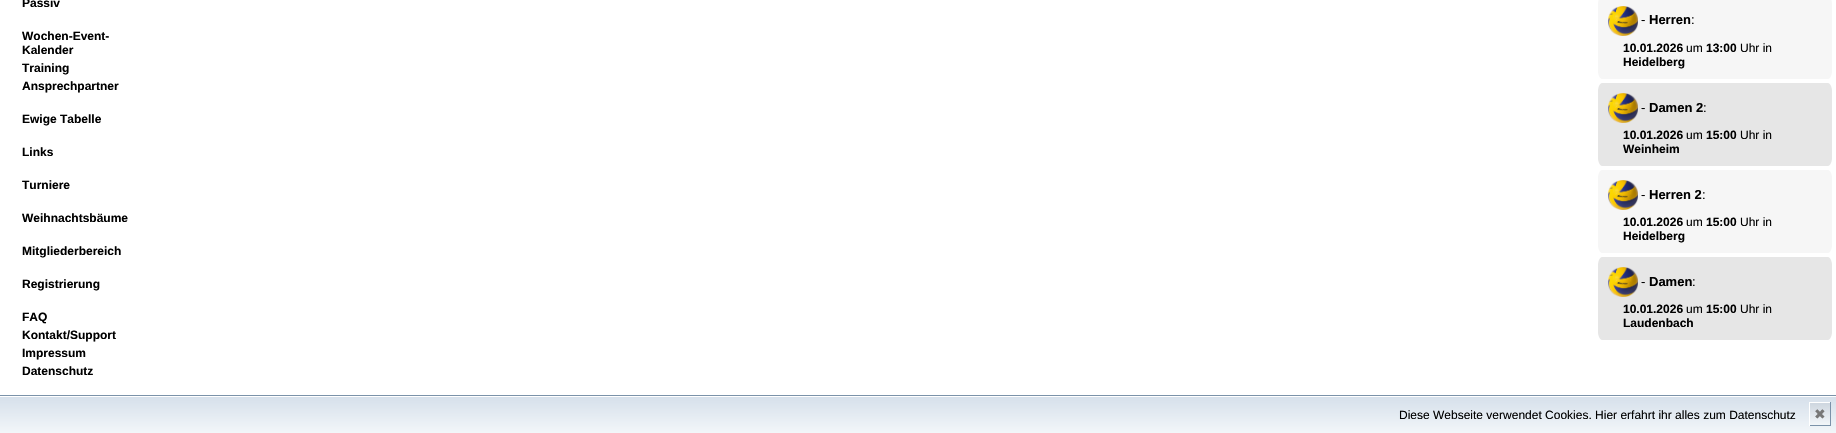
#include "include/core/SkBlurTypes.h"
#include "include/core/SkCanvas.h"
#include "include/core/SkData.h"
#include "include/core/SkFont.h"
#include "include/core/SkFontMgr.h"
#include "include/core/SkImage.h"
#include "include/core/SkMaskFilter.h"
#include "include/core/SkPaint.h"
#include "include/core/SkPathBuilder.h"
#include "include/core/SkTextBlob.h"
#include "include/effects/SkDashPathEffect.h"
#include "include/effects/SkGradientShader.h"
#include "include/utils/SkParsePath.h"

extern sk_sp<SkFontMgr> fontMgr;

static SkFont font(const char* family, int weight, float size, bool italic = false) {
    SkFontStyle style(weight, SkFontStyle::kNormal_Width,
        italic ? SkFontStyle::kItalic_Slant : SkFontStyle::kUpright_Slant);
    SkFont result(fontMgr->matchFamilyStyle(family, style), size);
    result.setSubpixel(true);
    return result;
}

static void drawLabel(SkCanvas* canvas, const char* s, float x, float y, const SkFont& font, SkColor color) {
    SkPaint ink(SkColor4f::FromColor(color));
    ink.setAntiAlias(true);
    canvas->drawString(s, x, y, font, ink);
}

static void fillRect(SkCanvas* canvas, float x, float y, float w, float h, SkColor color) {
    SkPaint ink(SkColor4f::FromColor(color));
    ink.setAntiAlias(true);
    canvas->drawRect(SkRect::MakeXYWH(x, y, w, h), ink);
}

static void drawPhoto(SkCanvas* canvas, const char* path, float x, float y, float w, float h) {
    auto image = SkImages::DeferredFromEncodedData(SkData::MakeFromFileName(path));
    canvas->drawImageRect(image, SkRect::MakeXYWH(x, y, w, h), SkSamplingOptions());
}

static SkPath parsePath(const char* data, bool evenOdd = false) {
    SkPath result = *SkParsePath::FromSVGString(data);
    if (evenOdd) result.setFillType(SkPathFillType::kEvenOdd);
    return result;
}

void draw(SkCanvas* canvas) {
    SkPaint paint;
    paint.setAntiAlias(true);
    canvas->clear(0xFFFFFFFF);
    SkFont font1 = font("Liberation Sans", 700, 12);
    drawLabel(canvas, "Passiv", 22, 7, font1, 0xFF000000);
    drawLabel(canvas, "Wochen-Event-", 22, 40, font1, 0xFF000000);
    drawLabel(canvas, "Kalender", 22, 54, font1, 0xFF000000);
    drawLabel(canvas, "Training", 22, 72, font1, 0xFF000000);
    drawLabel(canvas, "Ansprechpartner", 22, 90, font1, 0xFF000000);
    drawLabel(canvas, "Ewige Tabelle", 22, 123, font1, 0xFF000000);
    drawLabel(canvas, "Links", 22, 156, font1, 0xFF000000);
    drawLabel(canvas, "Turniere", 22, 189, font1, 0xFF000000);
    drawLabel(canvas, "Weihnachtsbäume", 22, 222, font1, 0xFF000000);
    drawLabel(canvas, "Mitgliederbereich", 22, 255, font1, 0xFF000000);
    drawLabel(canvas, "Registrierung", 22, 288, font1, 0xFF000000);
    drawLabel(canvas, "FAQ", 22, 321, font1, 0xFF000000);
    drawLabel(canvas, "Kontakt/Support", 22, 339, font1, 0xFF000000);
    drawLabel(canvas, "Impressum", 22, 357, font1, 0xFF000000);
    drawLabel(canvas, "Datenschutz", 22, 375, font1, 0xFF000000);
    paint.setColor(0xFFF6F6F6);
    canvas->drawPath(parsePath("M1602-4H1828C1830-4 1832 0 1832 4V71C1832 75 1830 79 1828 79H1602C1600 79 1598 75 1598 71V4C1598 0 1600-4 1602-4Z"), paint);
    drawPhoto(canvas, "assets/img1.png", 1608, 6, 30, 30);
    SkFont font2 = font("Liberation Sans", 400, 13);
    drawLabel(canvas, "-", 1641, 24, font2, 0xFF000000);
    SkFont font3 = font("Liberation Sans", 700, 13);
    drawLabel(canvas, "Herren", 1649, 24, font3, 0xFF000000);
    drawLabel(canvas, ":", 1691, 24, font2, 0xFF000000);
    drawLabel(canvas, "10.01.2026", 1623, 52, font1, 0xFF000000);
    SkFont font4 = font("Liberation Sans", 400, 12);
    drawLabel(canvas, "um", 1686, 52, font4, 0xFF000000);
    drawLabel(canvas, "13:00", 1706, 52, font1, 0xFF000000);
    drawLabel(canvas, "Uhr in", 1740, 52, font4, 0xFF000000);
    drawLabel(canvas, "Heidelberg", 1623, 66, font1, 0xFF000000);
    paint.setColor(0xFFE6E6E6);
    canvas->drawPath(parsePath("M1602 83H1828C1830 83 1832 87 1832 91V158C1832 162 1830 166 1828 166H1602C1600 166 1598 162 1598 158V91C1598 87 1600 83 1602 83Z"), paint);
    drawPhoto(canvas, "assets/img2.png", 1608, 93, 30, 30);
    drawLabel(canvas, "-", 1641, 112, font2, 0xFF000000);
    drawLabel(canvas, "Damen 2", 1649, 112, font3, 0xFF000000);
    drawLabel(canvas, ":", 1703, 112, font2, 0xFF000000);
    drawLabel(canvas, "10.01.2026", 1623, 139, font1, 0xFF000000);
    drawLabel(canvas, "um", 1686, 139, font4, 0xFF000000);
    drawLabel(canvas, "15:00", 1706, 139, font1, 0xFF000000);
    drawLabel(canvas, "Uhr in", 1740, 139, font4, 0xFF000000);
    drawLabel(canvas, "Weinheim", 1623, 153, font1, 0xFF000000);
    paint.setColor(0xFFF6F6F6);
    canvas->drawPath(parsePath("M1602 170H1828C1830 170 1832 174 1832 178V245C1832 249 1830 253 1828 253H1602C1600 253 1598 249 1598 245V178C1598 174 1600 170 1602 170Z"), paint);
    drawPhoto(canvas, "assets/img1.png", 1608, 180, 30, 30);
    drawLabel(canvas, "-", 1641, 199, font2, 0xFF000000);
    drawLabel(canvas, "Herren 2", 1649, 199, font3, 0xFF000000);
    drawLabel(canvas, ":", 1702, 199, font2, 0xFF000000);
    drawLabel(canvas, "10.01.2026", 1623, 226, font1, 0xFF000000);
    drawLabel(canvas, "um", 1686, 226, font4, 0xFF000000);
    drawLabel(canvas, "15:00", 1706, 226, font1, 0xFF000000);
    drawLabel(canvas, "Uhr in", 1740, 226, font4, 0xFF000000);
    drawLabel(canvas, "Heidelberg", 1623, 240, font1, 0xFF000000);
    paint.setColor(0xFFE6E6E6);
    canvas->drawPath(parsePath("M1602 257H1828C1830 257 1832 261 1832 265V332C1832 336 1830 340 1828 340H1602C1600 340 1598 336 1598 332V265C1598 261 1600 257 1602 257Z"), paint);
    drawPhoto(canvas, "assets/img3.png", 1608, 267, 30, 30);
    drawLabel(canvas, "-", 1641, 286, font2, 0xFF000000);
    drawLabel(canvas, "Damen", 1649, 286, font3, 0xFF000000);
    drawLabel(canvas, ":", 1692, 286, font2, 0xFF000000);
    drawLabel(canvas, "10.01.2026", 1623, 313, font1, 0xFF000000);
    drawLabel(canvas, "um", 1686, 313, font4, 0xFF000000);
    drawLabel(canvas, "15:00", 1706, 313, font1, 0xFF000000);
    drawLabel(canvas, "Uhr in", 1740, 313, font4, 0xFF000000);
    drawLabel(canvas, "Laudenbach", 1623, 327, font1, 0xFF000000);
    {
        const SkColor colors[] = {0xFFD6E0EB, 0xFFF2F6F9};
        const float stops[] = {0, 1};
        const SkPoint ends[] = {{918, 397}, {918, 433}};
        paint.setShader(SkGradientShader::MakeLinear(ends, colors, stops, 2, SkTileMode::kClamp));
        paint.setAlpha(255);
    }
    canvas->drawRect(SkRect::MakeXYWH(0, 397, 1836, 36), paint);
    paint.setStroke(true);
    paint.setStrokeWidth(1);
    paint.setShader(nullptr);
    paint.setColor(0xFF7B92A9);
    canvas->drawRect(SkRect::MakeXYWH(-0.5f, 395.5f, 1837, 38), paint);
    drawLabel(canvas, "Diese Webseite verwendet Cookies. Hier erfahrt ihr alles zum Datenschutz", 1399, 419, font4, 0xFF000000);
    paint.setStroke(false);
    {
        const SkColor colors[] = {0xFFCED6DF, 0xFFF2F6F9};
        const float stops[] = {0, 1};
        const SkPoint ends[] = {{1810, 403}, {1810, 425}};
        paint.setShader(SkGradientShader::MakeLinear(ends, colors, stops, 2, SkTileMode::kClamp));
        paint.setAlpha(255);
    }
    canvas->drawRect(SkRect::MakeXYWH(1810, 403, 20, 22), paint);
    fillRect(canvas, 1809, 402, 22, 1, 0xFFFFFFFF);
    fillRect(canvas, 1830, 402, 1, 24, 0xFF7B92A9);
    fillRect(canvas, 1809, 425, 22, 1, 0xFF7B92A9);
    fillRect(canvas, 1809, 402, 1, 24, 0xFFFFFFFF);
    SkFont font5 = font("DejaVu Sans", 400, 14);
    drawLabel(canvas, "✖", 1814, 419, font5, 0xFF777777);
}
